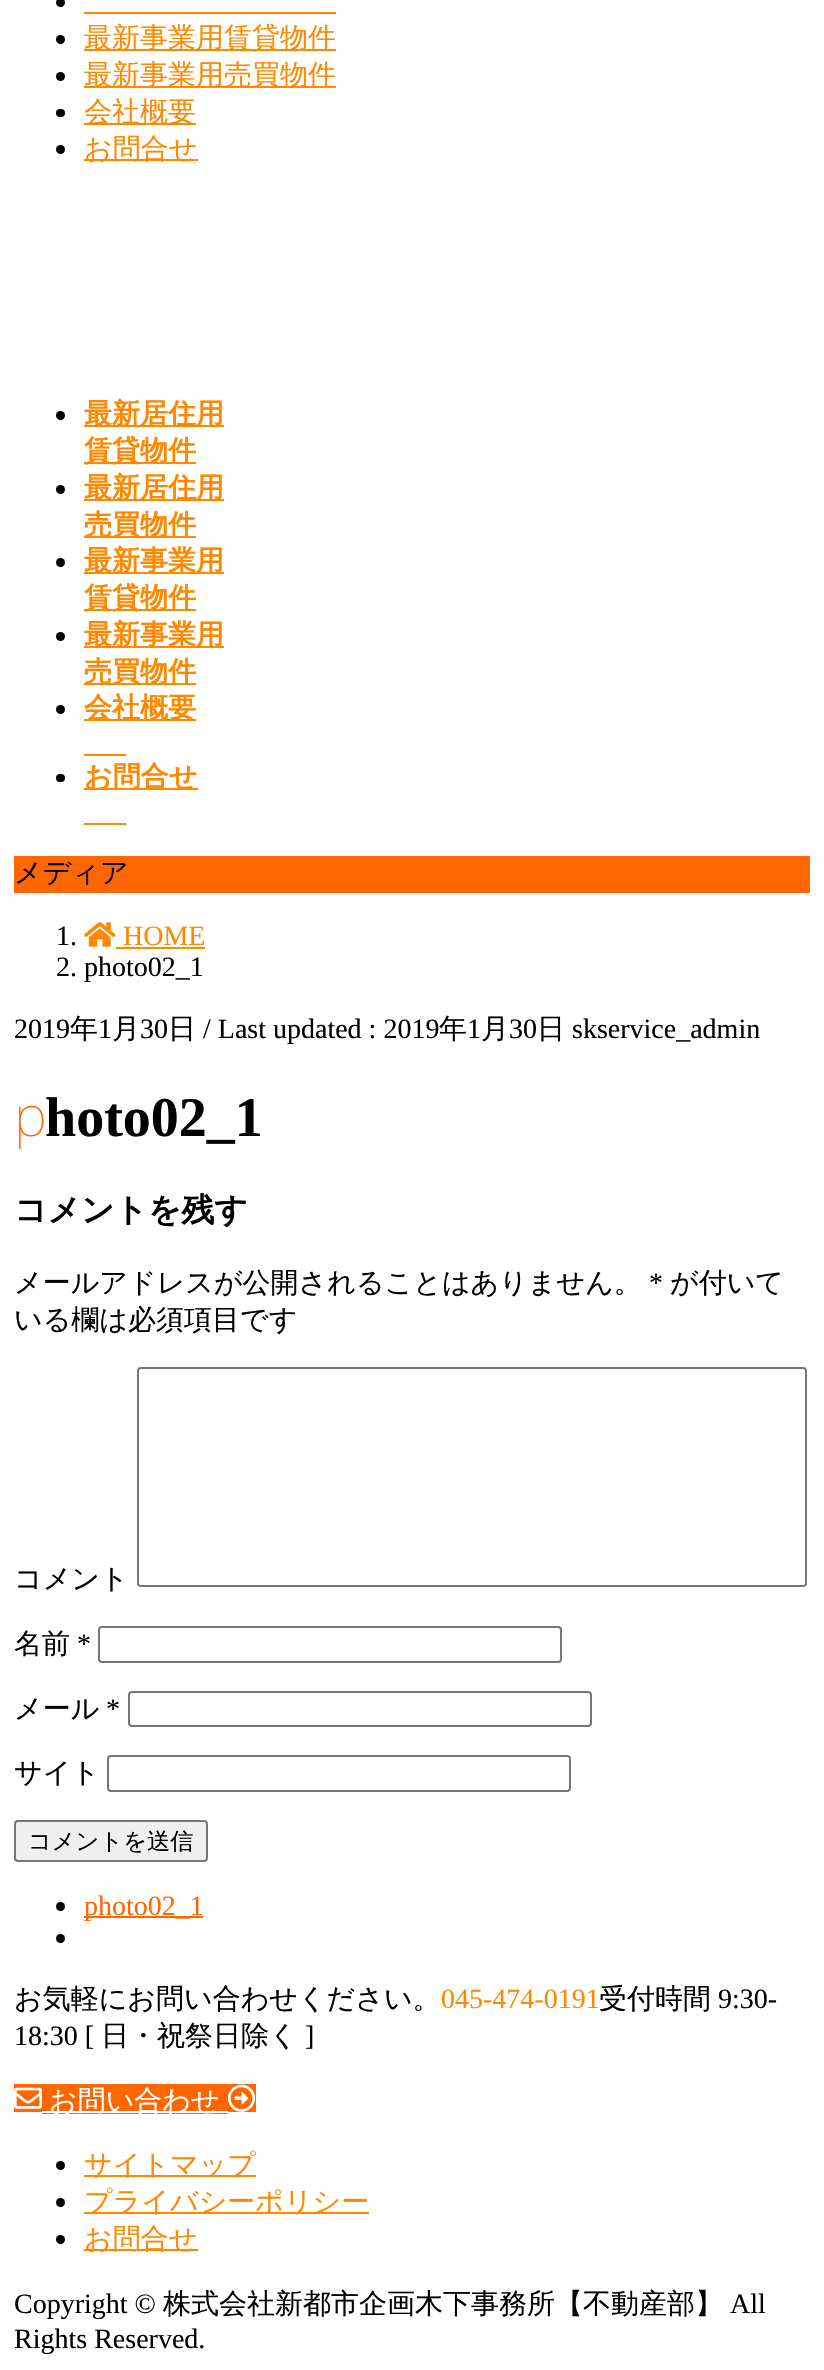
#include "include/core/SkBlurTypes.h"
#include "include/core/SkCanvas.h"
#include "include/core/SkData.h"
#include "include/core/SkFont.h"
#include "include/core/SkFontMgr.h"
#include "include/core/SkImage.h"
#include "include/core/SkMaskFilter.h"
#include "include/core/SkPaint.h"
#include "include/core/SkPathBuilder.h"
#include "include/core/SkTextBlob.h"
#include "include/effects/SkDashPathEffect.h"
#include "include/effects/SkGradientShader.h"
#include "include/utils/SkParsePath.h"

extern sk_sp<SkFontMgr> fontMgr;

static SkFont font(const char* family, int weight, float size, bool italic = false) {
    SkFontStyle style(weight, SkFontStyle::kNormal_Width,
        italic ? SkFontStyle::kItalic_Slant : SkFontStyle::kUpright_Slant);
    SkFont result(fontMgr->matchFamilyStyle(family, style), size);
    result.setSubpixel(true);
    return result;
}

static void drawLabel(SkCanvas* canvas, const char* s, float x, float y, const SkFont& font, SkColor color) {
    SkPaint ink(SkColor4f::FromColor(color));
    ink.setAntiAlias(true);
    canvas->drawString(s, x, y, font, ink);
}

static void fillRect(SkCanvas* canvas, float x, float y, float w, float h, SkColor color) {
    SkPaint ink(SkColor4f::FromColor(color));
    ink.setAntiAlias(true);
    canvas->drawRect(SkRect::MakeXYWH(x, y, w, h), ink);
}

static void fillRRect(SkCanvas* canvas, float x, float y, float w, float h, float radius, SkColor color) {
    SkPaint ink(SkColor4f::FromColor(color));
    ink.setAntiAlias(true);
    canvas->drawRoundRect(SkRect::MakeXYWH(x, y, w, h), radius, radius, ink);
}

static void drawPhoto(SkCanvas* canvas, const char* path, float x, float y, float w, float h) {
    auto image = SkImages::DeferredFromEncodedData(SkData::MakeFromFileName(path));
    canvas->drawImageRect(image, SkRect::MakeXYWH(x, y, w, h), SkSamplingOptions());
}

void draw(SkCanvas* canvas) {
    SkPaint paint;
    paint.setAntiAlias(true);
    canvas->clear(0xFFFFFFFF);
    paint.setColor(0xFF000000);
    canvas->drawCircle(60.5f, 2.5f, 4.5f, paint);
    fillRect(canvas, 84, 12, 252, 2, 0xFFFF8800);
    canvas->drawCircle(60.5f, 39.5f, 4.5f, paint);
    fillRect(canvas, 84, 49, 252, 2, 0xFFFF8800);
    SkFont font1 = font("WenQuanYi Zen Hei", 500, 28);
    drawLabel(canvas, "最新事業用賃貸物件", 84, 47, font1, 0xFFFF8800);
    canvas->drawCircle(60.5f, 76.5f, 4.5f, paint);
    fillRect(canvas, 84, 86, 252, 2, 0xFFFF8800);
    drawLabel(canvas, "最新事業用売買物件", 84, 84, font1, 0xFFFF8800);
    fillRRect(canvas, 56, 109, 9, 8, 4, 0xFF000000);
    fillRect(canvas, 84, 123, 112, 2, 0xFFFF8800);
    drawLabel(canvas, "会社概要", 84, 121, font1, 0xFFFF8800);
    canvas->drawCircle(60.5f, 149.5f, 4.5f, paint);
    fillRect(canvas, 84, 159, 114, 2, 0xFFFF8800);
    drawLabel(canvas, "お問合せ", 84, 158, font1, 0xFFFF8800);
    canvas->drawCircle(60.5f, 415.5f, 4.5f, paint);
    fillRect(canvas, 84, 425, 140, 2, 0xFFFF8800);
    SkFont font2 = font("WenQuanYi Zen Hei", 700, 28);
    drawLabel(canvas, "最新居住用", 84, 423, font2, 0xFFFF8800);
    fillRect(canvas, 84, 462, 112, 2, 0xFFFF8800);
    drawLabel(canvas, "賃貸物件", 84, 460, font2, 0xFFFF8800);
    canvas->drawCircle(60.5f, 489.5f, 4.5f, paint);
    fillRect(canvas, 84, 499, 140, 2, 0xFFFF8800);
    drawLabel(canvas, "最新居住用", 84, 497, font2, 0xFFFF8800);
    fillRect(canvas, 84, 536, 112, 2, 0xFFFF8800);
    drawLabel(canvas, "売買物件", 84, 534, font2, 0xFFFF8800);
    canvas->drawCircle(60.5f, 562.5f, 4.5f, paint);
    fillRect(canvas, 84, 572, 140, 2, 0xFFFF8800);
    drawLabel(canvas, "最新事業用", 84, 570, font2, 0xFFFF8800);
    fillRect(canvas, 84, 609, 112, 2, 0xFFFF8800);
    drawLabel(canvas, "賃貸物件", 84, 607, font2, 0xFFFF8800);
    canvas->drawCircle(60.5f, 636.5f, 4.5f, paint);
    fillRect(canvas, 84, 646, 140, 2, 0xFFFF8800);
    drawLabel(canvas, "最新事業用", 84, 644, font2, 0xFFFF8800);
    fillRect(canvas, 84, 683, 112, 2, 0xFFFF8800);
    drawLabel(canvas, "売買物件", 84, 681, font2, 0xFFFF8800);
    canvas->drawCircle(60.5f, 709.5f, 4.5f, paint);
    fillRect(canvas, 84, 719, 112, 2, 0xFFFF8800);
    drawLabel(canvas, "会社概要", 84, 717, font2, 0xFFFF8800);
    fillRect(canvas, 84, 754, 42, 2, 0xFFFF8800);
    fillRRect(canvas, 56, 774, 9, 8, 4, 0xFF000000);
    fillRect(canvas, 84, 788, 114, 2, 0xFFFF8800);
    drawLabel(canvas, "お問合せ", 84, 786, font2, 0xFFFF8800);
    fillRect(canvas, 84, 823, 42, 2, 0xFFFF8800);
    fillRect(canvas, 14, 856, 796, 37, 0xFFFF6600);
    drawLabel(canvas, "メディア", 14, 882, font1, 0xFF000000);
    SkFont font3 = font("Liberation Serif", 400, 28);
    drawLabel(canvas, "1.", 56, 945, font3, 0xFF000000);
    drawPhoto(canvas, "assets/img1.png", 84, 922, 32, 25);
    drawLabel(canvas, "HOME", 123, 945, font3, 0xFFFF8800);
    fillRect(canvas, 116, 947, 89, 2, 0xFFFF8800);
    drawLabel(canvas, "2. photo02_1", 56, 976, font3, 0xFF000000);
    drawLabel(canvas, "2019", 14, 1038, font3, 0xFF000000);
    drawLabel(canvas, "年", 70, 1038, font1, 0xFF000000);
    drawLabel(canvas, "1", 98, 1038, font3, 0xFF000000);
    drawLabel(canvas, "月", 112, 1038, font1, 0xFF000000);
    drawLabel(canvas, "30", 140, 1038, font3, 0xFF000000);
    drawLabel(canvas, "日", 168, 1038, font1, 0xFF000000);
    drawLabel(canvas, "/ Last updated : 2019", 203, 1038, font3, 0xFF000000);
    drawLabel(canvas, "年", 439, 1038, font1, 0xFF000000);
    drawLabel(canvas, "1", 467, 1038, font3, 0xFF000000);
    drawLabel(canvas, "月", 481, 1038, font1, 0xFF000000);
    drawLabel(canvas, "30", 509, 1038, font3, 0xFF000000);
    drawLabel(canvas, "日", 537, 1038, font1, 0xFF000000);
    drawLabel(canvas, "skservice_admin", 572, 1038, font3, 0xFF000000);
    SkFont font4 = font("Noto Sans", 100, 56);
    drawLabel(canvas, "p", 14, 1136, font4, 0xFFFF6600);
    SkFont font5 = font("Liberation Serif", 700, 56);
    drawLabel(canvas, "hoto02_1", 45, 1136, font5, 0xFF000000);
    SkFont font6 = font("WenQuanYi Zen Hei", 700, 32.75f);
    drawLabel(canvas, "コメントを残す", 14, 1221, font6, 0xFF000000);
    drawLabel(canvas, "メールアドレスが公開されることはありません。", 14, 1292, font1, 0xFF000000);
    drawLabel(canvas, "*", 649, 1292, font3, 0xFF000000);
    drawLabel(canvas, "が付いて", 670, 1292, font1, 0xFF000000);
    drawLabel(canvas, "いる欄は必須項目です", 14, 1329, font1, 0xFF000000);
    drawLabel(canvas, "コメント", 14, 1588, font1, 0xFF000000);
    paint.setStroke(true);
    paint.setStrokeWidth(2);
    paint.setColor(0xFF767676);
    canvas->drawRoundRect(SkRect::MakeXYWH(138, 1368, 668, 218), 3, 3, paint);
    drawLabel(canvas, "名前", 14, 1653, font1, 0xFF000000);
    drawLabel(canvas, "*", 77, 1653, font3, 0xFF000000);
    canvas->drawRoundRect(SkRect::MakeXYWH(99, 1627, 462, 35), 3, 3, paint);
    drawLabel(canvas, "メール", 14, 1718, font1, 0xFF000000);
    drawLabel(canvas, "*", 106, 1718, font3, 0xFF000000);
    canvas->drawRoundRect(SkRect::MakeXYWH(129, 1692, 462, 34), 3, 3, paint);
    drawLabel(canvas, "サイト", 14, 1782, font1, 0xFF000000);
    canvas->drawRoundRect(SkRect::MakeXYWH(108, 1756, 462, 35), 3, 3, paint);
    paint.setStroke(false);
    paint.setColor(0xFFEFEFEF);
    canvas->drawRoundRect(SkRect::MakeXYWH(15, 1821, 192, 40), 3, 3, paint);
    paint.setStroke(true);
    paint.setColor(0xFF767676);
    canvas->drawRoundRect(SkRect::MakeXYWH(15, 1821, 192, 40), 3, 3, paint);
    SkFont font7 = font("WenQuanYi Zen Hei", 500, 23.25f);
    drawLabel(canvas, "コメントを送信", 28, 1849, font7, 0xFF000000);
    paint.setStroke(false);
    paint.setColor(0xFF000000);
    canvas->drawCircle(60.5f, 1906.5f, 4.5f, paint);
    fillRect(canvas, 84, 1916, 119, 2, 0xFFFF6600);
    drawLabel(canvas, "photo02_1", 84, 1915, font3, 0xFFFF6600);
    canvas->drawCircle(60.5f, 1938.5f, 4.5f, paint);
    drawLabel(canvas, "お気軽にお問い合わせください。", 14, 2008, font1, 0xFF000000);
    drawLabel(canvas, "045-474-0191", 441, 2008, font3, 0xFFFF8800);
    drawLabel(canvas, "受付時間", 599, 2008, font1, 0xFF000000);
    drawLabel(canvas, "9:30-", 718, 2008, font3, 0xFF000000);
    drawLabel(canvas, "18:30 [", 14, 2045, font3, 0xFF000000);
    drawLabel(canvas, "日・祝祭日除く", 101, 2045, font1, 0xFF000000);
    drawLabel(canvas, "]", 305, 2045, font3, 0xFF000000);
    fillRect(canvas, 14, 2084, 28, 28, 0xFFFF6600);
    fillRect(canvas, 42, 2084, 186, 30, 0xFFFF6600);
    fillRect(canvas, 228, 2084, 28, 28, 0xFFFF6600);
    drawPhoto(canvas, "assets/img2.png", 14, 2087, 28, 22);
    fillRect(canvas, 42, 2111, 186, 2, 0xFFFFFFFF);
    drawLabel(canvas, "お問い合わせ", 49, 2110, font1, 0xFFFFFFFF);
    drawPhoto(canvas, "assets/img3.png", 227, 2084, 29, 28);
    canvas->drawCircle(60.5f, 2165.5f, 4.5f, paint);
    fillRect(canvas, 84, 2175, 172, 2, 0xFFFF8800);
    drawLabel(canvas, "サイトマップ", 84, 2174, font1, 0xFFFF8800);
    canvas->drawCircle(60.5f, 2202.5f, 4.5f, paint);
    fillRect(canvas, 84, 2212, 285, 2, 0xFFFF8800);
    drawLabel(canvas, "プライバシーポリシー", 84, 2211, font1, 0xFFFF8800);
    canvas->drawCircle(60.5f, 2239.5f, 4.5f, paint);
    fillRect(canvas, 84, 2249, 114, 2, 0xFFFF8800);
    drawLabel(canvas, "お問合せ", 84, 2248, font1, 0xFFFF8800);
    drawLabel(canvas, "Copyright ©", 14, 2313, font3, 0xFF000000);
    drawLabel(canvas, "株式会社新都市企画木下事務所【不動産部】", 163, 2313, font1, 0xFF000000);
    drawLabel(canvas, "All", 730, 2313, font3, 0xFF000000);
    drawLabel(canvas, "Rights Reserved.", 14, 2348, font3, 0xFF000000);
}
